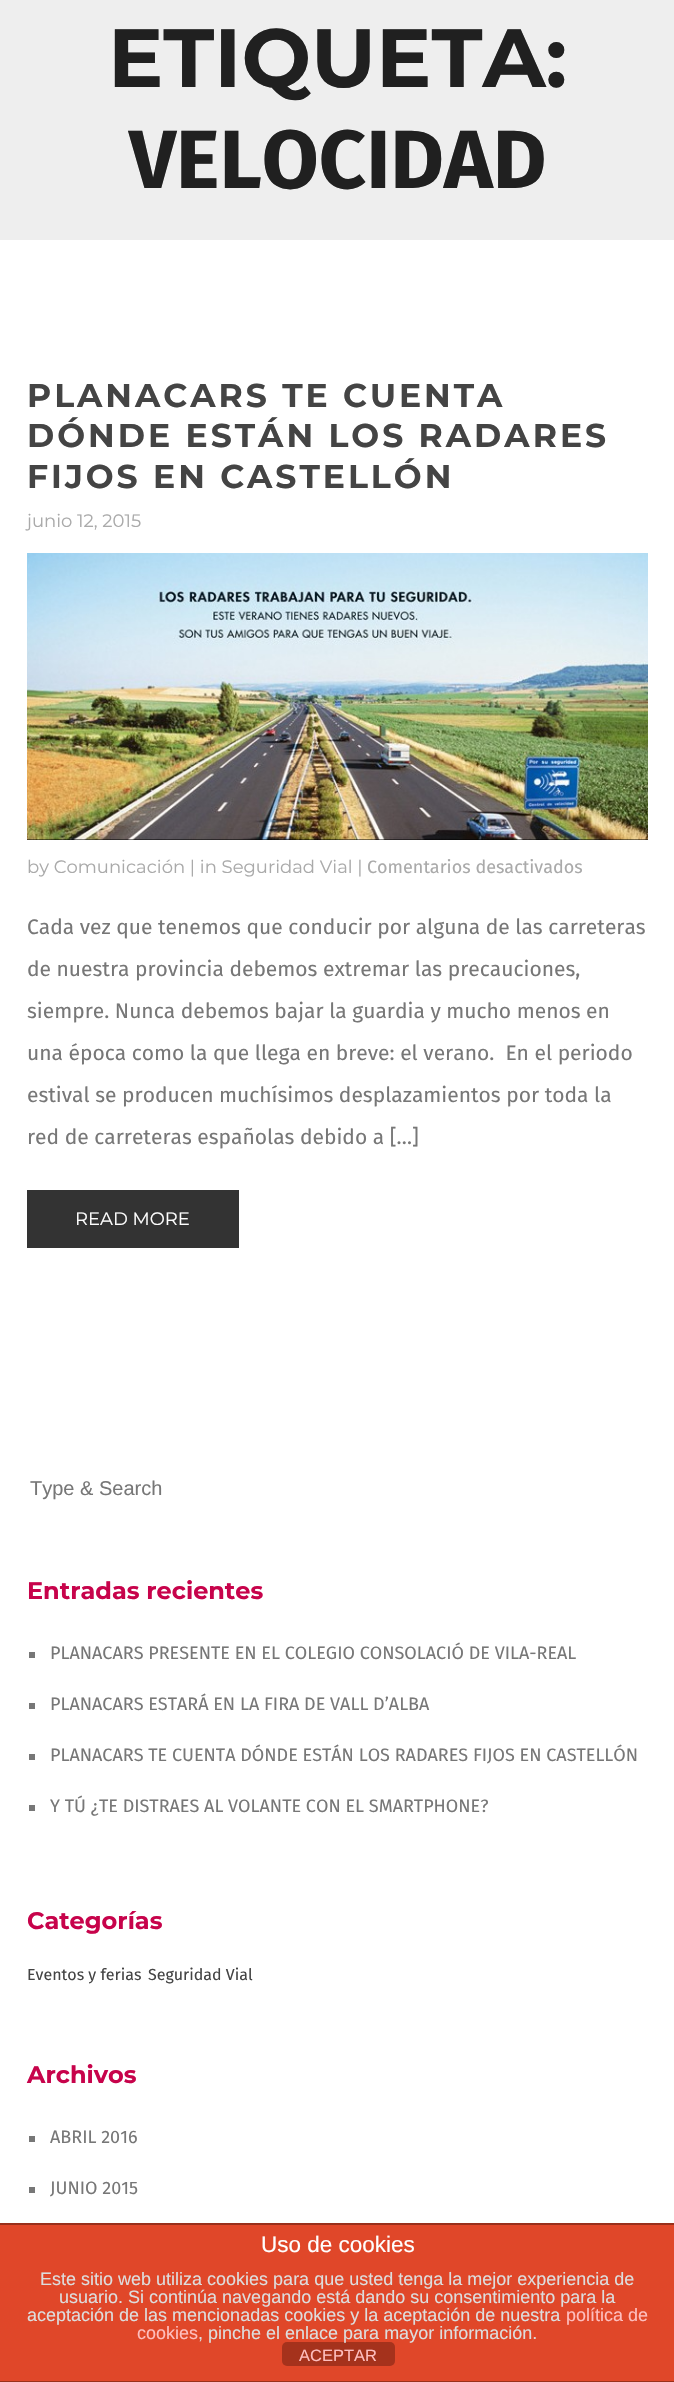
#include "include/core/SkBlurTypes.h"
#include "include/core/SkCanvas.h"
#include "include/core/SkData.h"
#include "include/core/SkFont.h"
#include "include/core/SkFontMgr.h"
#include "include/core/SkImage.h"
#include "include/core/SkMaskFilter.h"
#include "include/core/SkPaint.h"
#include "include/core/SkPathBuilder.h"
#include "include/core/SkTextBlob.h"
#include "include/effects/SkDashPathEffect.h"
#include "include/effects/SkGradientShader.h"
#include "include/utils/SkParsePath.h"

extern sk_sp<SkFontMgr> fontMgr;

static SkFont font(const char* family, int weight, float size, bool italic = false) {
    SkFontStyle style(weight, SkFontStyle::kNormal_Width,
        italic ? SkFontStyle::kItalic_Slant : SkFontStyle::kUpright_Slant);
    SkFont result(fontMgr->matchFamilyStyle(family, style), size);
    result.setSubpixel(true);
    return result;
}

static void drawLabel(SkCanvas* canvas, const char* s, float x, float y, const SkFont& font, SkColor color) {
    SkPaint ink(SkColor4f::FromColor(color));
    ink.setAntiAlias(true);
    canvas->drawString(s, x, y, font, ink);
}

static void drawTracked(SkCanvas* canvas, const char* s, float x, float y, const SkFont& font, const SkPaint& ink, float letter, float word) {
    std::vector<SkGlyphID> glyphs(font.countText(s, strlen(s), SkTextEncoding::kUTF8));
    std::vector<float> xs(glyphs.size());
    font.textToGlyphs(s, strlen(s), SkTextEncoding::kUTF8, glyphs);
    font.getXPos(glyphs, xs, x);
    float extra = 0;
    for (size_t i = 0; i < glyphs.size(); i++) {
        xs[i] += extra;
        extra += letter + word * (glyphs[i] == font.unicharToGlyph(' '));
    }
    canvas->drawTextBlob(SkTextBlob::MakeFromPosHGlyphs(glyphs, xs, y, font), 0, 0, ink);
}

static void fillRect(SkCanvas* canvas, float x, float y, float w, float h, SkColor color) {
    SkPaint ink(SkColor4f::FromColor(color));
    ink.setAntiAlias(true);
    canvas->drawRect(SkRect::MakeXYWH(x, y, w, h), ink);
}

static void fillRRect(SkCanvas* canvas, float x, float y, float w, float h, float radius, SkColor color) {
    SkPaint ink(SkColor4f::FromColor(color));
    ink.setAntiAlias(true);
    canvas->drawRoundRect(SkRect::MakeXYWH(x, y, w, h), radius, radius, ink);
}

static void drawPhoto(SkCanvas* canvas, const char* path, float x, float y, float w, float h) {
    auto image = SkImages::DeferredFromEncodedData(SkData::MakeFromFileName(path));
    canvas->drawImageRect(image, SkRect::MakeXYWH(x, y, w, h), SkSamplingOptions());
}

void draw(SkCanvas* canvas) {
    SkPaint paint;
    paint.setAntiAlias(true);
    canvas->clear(0xFFFFFFFF);
    fillRect(canvas, 0, 0, 674, 240, 0xFFEEEEEE);
    SkFont font1 = font("Montserrat", 700, 82.5f);
    drawLabel(canvas, "ETIQUETA:", 108, 87, font1, 0xFF202020);
    SkFont font2 = font("Fira Sans", 700, 82.5f);
    drawLabel(canvas, "VELOCIDAD", 129, 188, font2, 0xFF202020);
    SkFont font3 = font("Montserrat", 700, 33);
    paint.setColor(0xFF444444);
    drawTracked(canvas, "PLANACARS TE CUENTA", 27, 407, font3, paint, 3, 0);
    drawTracked(canvas, "DÓNDE ESTÁN LOS RADARES", 27, 447, font3, paint, 3, 0);
    drawTracked(canvas, "FIJOS EN CASTELLÓN", 27, 488, font3, paint, 3, 0);
    SkFont font4 = font("Montserrat", 400, 18);
    drawLabel(canvas, "junio 12, 2015", 27, 527, font4, 0xFFAAAAAA);
    fillRect(canvas, 27, 839, 621, 1, 0xFF000000);
    drawPhoto(canvas, "assets/img1.png", 27, 553, 621, 287);
    drawLabel(canvas, "by Comunicación | in Seguridad Vial |", 27, 873, font4, 0xFFAAAAAA);
    SkFont font5 = font("Fira Sans", 400, 18);
    drawLabel(canvas, "Comentarios desactivados", 367, 873, font5, 0xFFAAAAAA);
    SkFont font6 = font("Fira Sans", 400, 21);
    drawLabel(canvas, "Cada vez que tenemos que conducir por alguna de las carreteras", 27, 934, font6, 0xFF777777);
    drawLabel(canvas, "de nuestra provincia debemos extremar las precauciones,", 27, 976, font6, 0xFF777777);
    drawLabel(canvas, "siempre. Nunca debemos bajar la guardia y mucho menos en", 27, 1018, font6, 0xFF777777);
    drawLabel(canvas, "una época como la que llega en breve: el verano.  En el periodo", 27, 1060, font6, 0xFF777777);
    drawLabel(canvas, "estival se producen muchísimos desplazamientos por toda la", 27, 1102, font6, 0xFF777777);
    drawLabel(canvas, "red de carreteras españolas debido a […]", 27, 1144, font6, 0xFF777777);
    fillRect(canvas, 27, 1190, 212, 58, 0xFF333333);
    drawLabel(canvas, "READ MORE", 75, 1225, font4, 0xFFFFFFFF);
    SkFont font7 = font("Liberation Sans", 400, 20);
    drawLabel(canvas, "Type & Search", 30, 1495, font7, 0xFF777777);
    SkFont font8 = font("Montserrat", 700, 24);
    drawLabel(canvas, "Entradas recientes", 27, 1599, font8, 0xFFC7034B);
    fillRect(canvas, 29, 1652, 6, 6, 0xFF777777);
    drawLabel(canvas, "PLANACARS PRESENTE EN EL COLEGIO CONSOLACIÓ DE VILA-REAL", 50, 1659, font5, 0xFF777777);
    fillRect(canvas, 29, 1703, 6, 6, 0xFF777777);
    drawLabel(canvas, "PLANACARS ESTARÁ EN LA FIRA DE VALL D’ALBA", 50, 1710, font5, 0xFF777777);
    fillRect(canvas, 29, 1754, 6, 6, 0xFF777777);
    drawLabel(canvas, "PLANACARS TE CUENTA DÓNDE ESTÁN LOS RADARES FIJOS EN CASTELLÓN", 50, 1761, font5, 0xFF777777);
    fillRect(canvas, 29, 1805, 6, 6, 0xFF777777);
    drawLabel(canvas, "Y TÚ ¿TE DISTRAES AL VOLANTE CON EL SMARTPHONE?", 50, 1812, font5, 0xFF777777);
    drawLabel(canvas, "Categorías", 27, 1929, font8, 0xFFC7034B);
    SkFont font9 = font("Fira Sans", 400, 16);
    drawLabel(canvas, "Eventos y ferias", 27, 1980, font9, 0xFF444444);
    drawLabel(canvas, "Seguridad Vial", 148, 1980, font9, 0xFF444444);
    drawLabel(canvas, "Archivos", 27, 2083, font8, 0xFFC7034B);
    fillRect(canvas, 29, 2136, 6, 6, 0xFF777777);
    drawLabel(canvas, "ABRIL 2016", 50, 2143, font5, 0xFF777777);
    fillRect(canvas, 29, 2187, 6, 6, 0xFF777777);
    drawLabel(canvas, "JUNIO 2015", 50, 2194, font5, 0xFF777777);
    fillRect(canvas, 0, 2225, 674, 156, 0xFFE04729);
    fillRect(canvas, 0, 2223, 674, 2, 0xFF99301B);
    fillRect(canvas, 0, 2381, 674, 1, 0xFF99301B);
    SkFont font10 = font("Liberation Sans", 400, 22.5f);
    drawLabel(canvas, "Uso de cookies", 261, 2252, font10, 0xFFFFFFFF);
    SkFont font11 = font("Liberation Sans", 400, 18);
    drawLabel(canvas, "Este sitio web utiliza cookies para que usted tenga la mejor experiencia de", 40, 2285, font11, 0xFFDDDDDD);
    drawLabel(canvas, "usuario. Si continúa navegando está dando su consentimiento para la", 59, 2303, font11, 0xFFDDDDDD);
    drawLabel(canvas, "aceptación de las mencionadas cookies y la aceptación de nuestra", 27, 2321, font11, 0xFFDDDDDD);
    drawLabel(canvas, "política de", 566, 2321, font11, 0xFFFEBEBE);
    drawLabel(canvas, "cookies", 137, 2339, font11, 0xFFFEBEBE);
    fillRRect(canvas, 282, 2342, 113, 24, 5, 0xFFA5321C);
    drawLabel(canvas, ", pinche el enlace para mayor información.", 198, 2339, font11, 0xFFDDDDDD);
    SkFont font12 = font("Liberation Sans", 400, 16.5f);
    drawLabel(canvas, "ACEPTAR", 299, 2361, font12, 0xFFFEBEBE);
}
